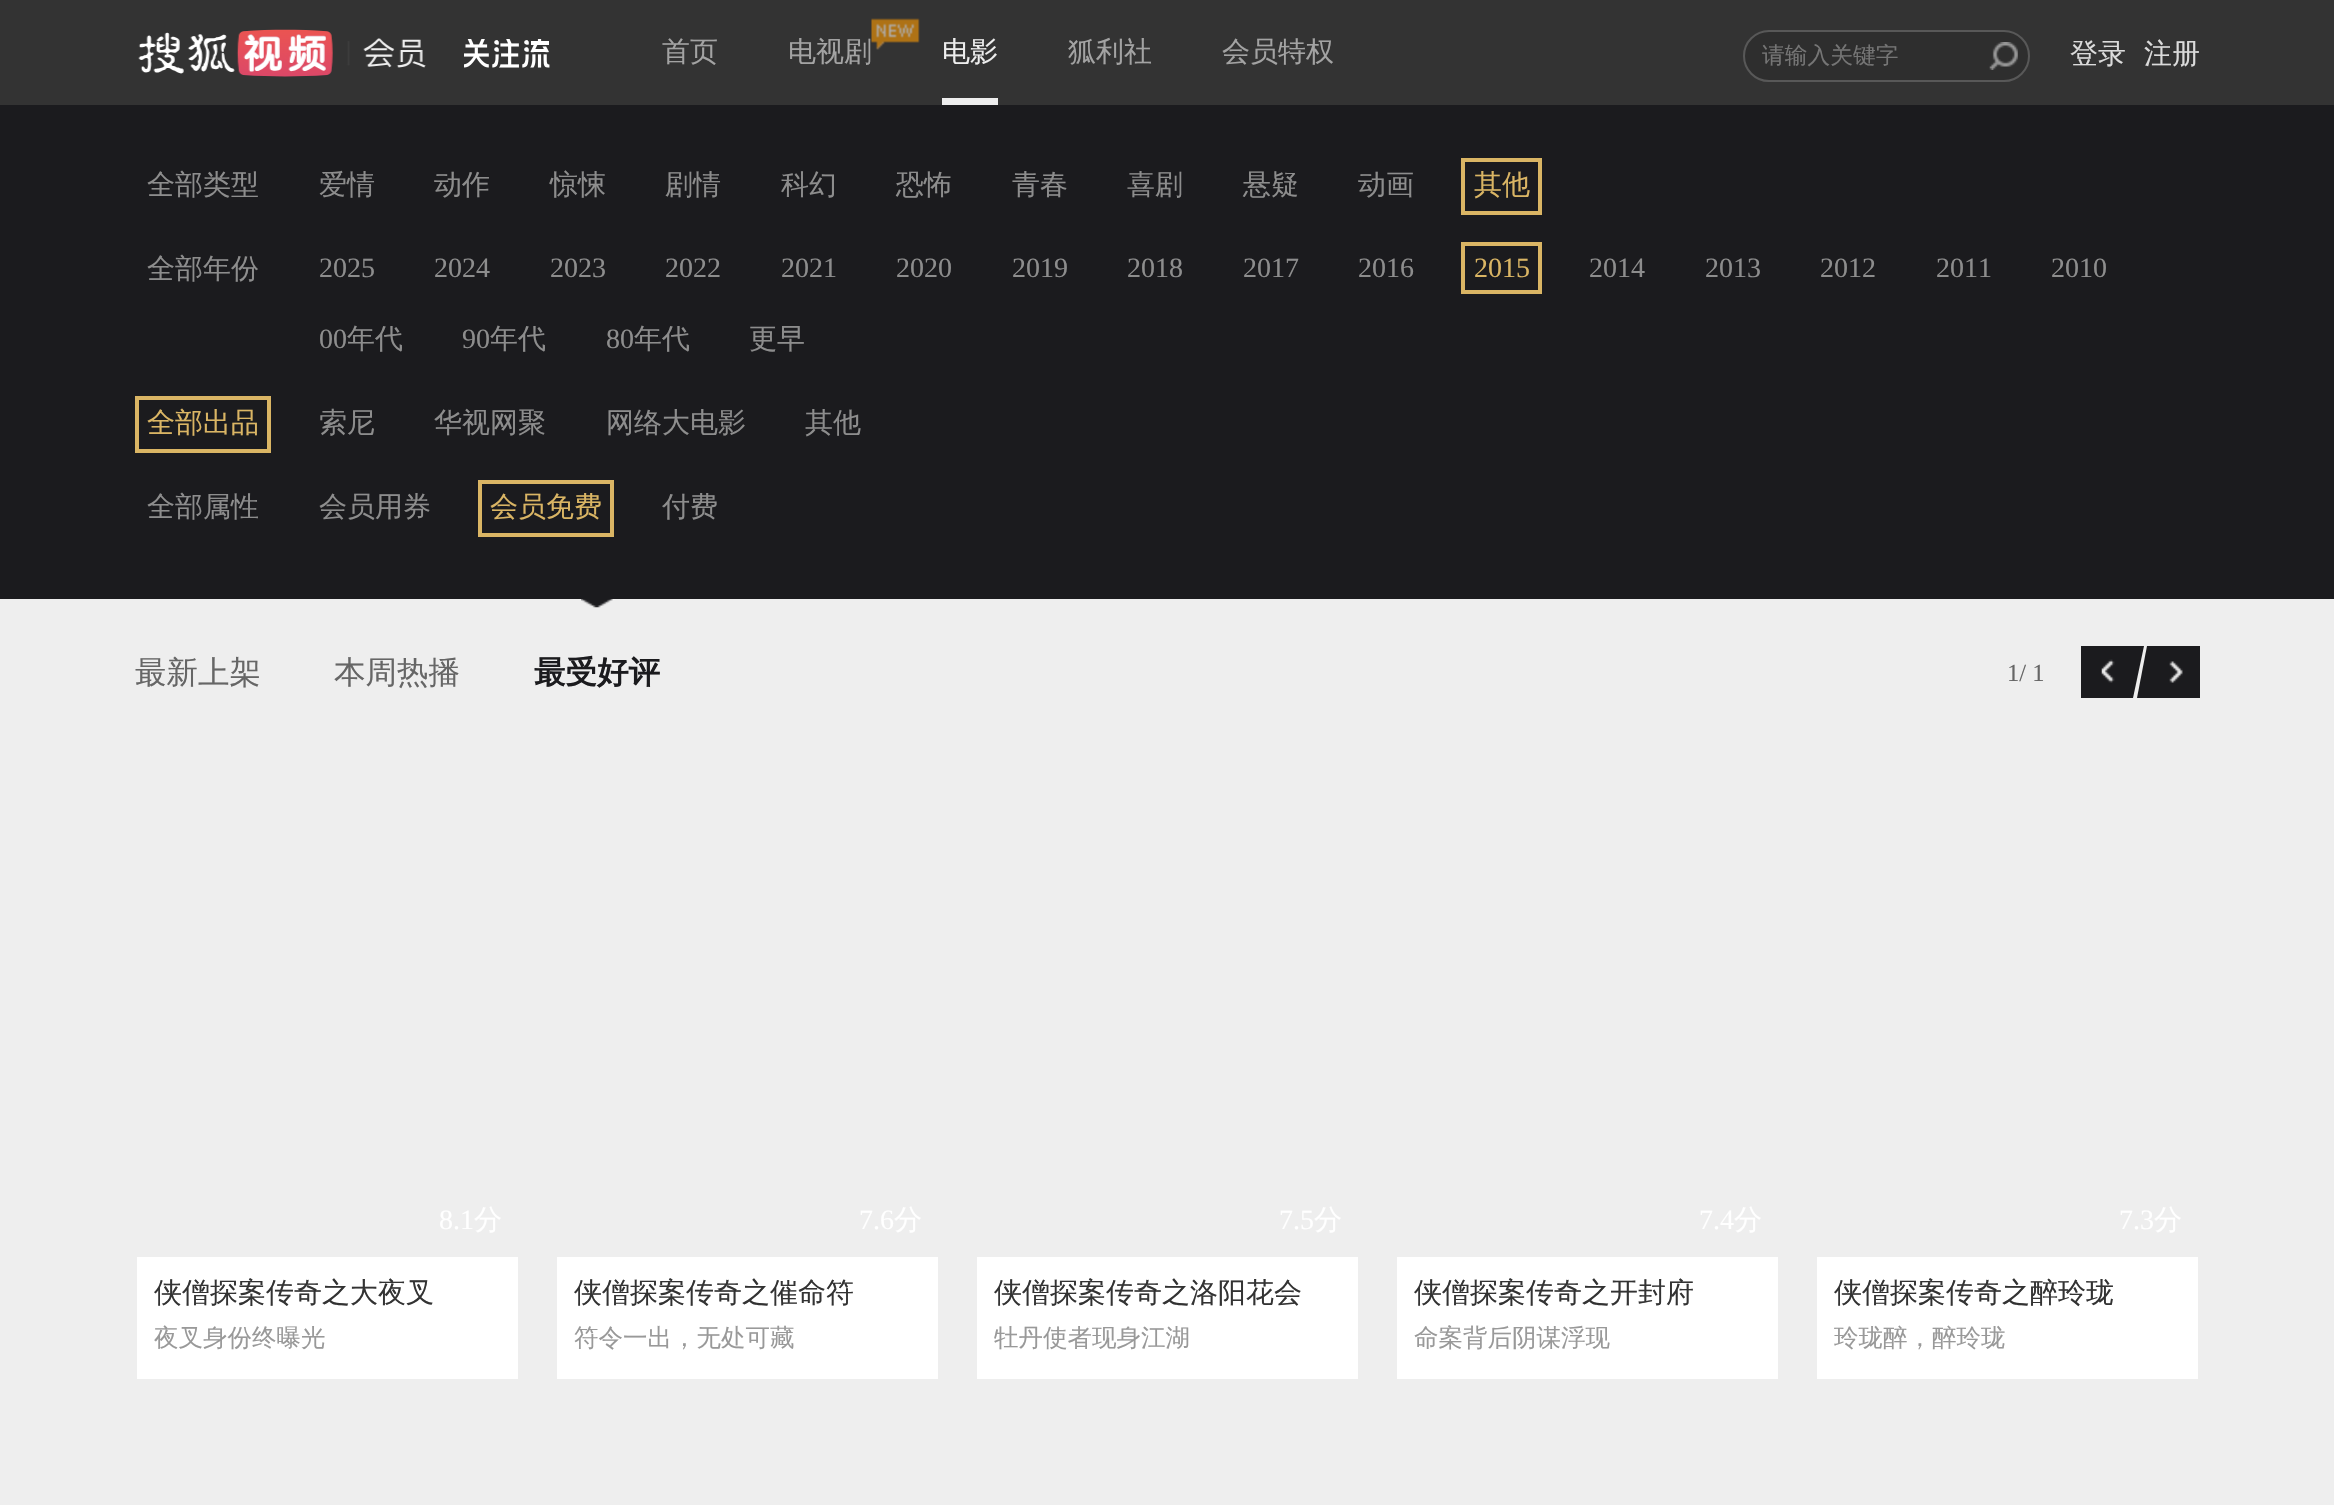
#include "include/core/SkBlurTypes.h"
#include "include/core/SkCanvas.h"
#include "include/core/SkData.h"
#include "include/core/SkFont.h"
#include "include/core/SkFontMgr.h"
#include "include/core/SkImage.h"
#include "include/core/SkMaskFilter.h"
#include "include/core/SkPaint.h"
#include "include/core/SkPathBuilder.h"
#include "include/core/SkTextBlob.h"
#include "include/effects/SkDashPathEffect.h"
#include "include/effects/SkGradientShader.h"
#include "include/utils/SkParsePath.h"

extern sk_sp<SkFontMgr> fontMgr;

static SkFont font(const char* family, int weight, float size, bool italic = false) {
    SkFontStyle style(weight, SkFontStyle::kNormal_Width,
        italic ? SkFontStyle::kItalic_Slant : SkFontStyle::kUpright_Slant);
    SkFont result(fontMgr->matchFamilyStyle(family, style), size);
    result.setSubpixel(true);
    return result;
}

static void drawLabel(SkCanvas* canvas, const char* s, float x, float y, const SkFont& font, SkColor color) {
    SkPaint ink(SkColor4f::FromColor(color));
    ink.setAntiAlias(true);
    canvas->drawString(s, x, y, font, ink);
}

static void fillRect(SkCanvas* canvas, float x, float y, float w, float h, SkColor color) {
    SkPaint ink(SkColor4f::FromColor(color));
    ink.setAntiAlias(true);
    canvas->drawRect(SkRect::MakeXYWH(x, y, w, h), ink);
}

static void drawPhoto(SkCanvas* canvas, const char* path, float x, float y, float w, float h) {
    auto image = SkImages::DeferredFromEncodedData(SkData::MakeFromFileName(path));
    canvas->drawImageRect(image, SkRect::MakeXYWH(x, y, w, h), SkSamplingOptions());
}

static SkPath parsePath(const char* data, bool evenOdd = false) {
    SkPath result = *SkParsePath::FromSVGString(data);
    if (evenOdd) result.setFillType(SkPathFillType::kEvenOdd);
    return result;
}

void draw(SkCanvas* canvas) {
    SkPaint paint;
    paint.setAntiAlias(true);
    canvas->clear(0xFFEEEEEE);
    fillRect(canvas, 0, 0, 2334, 105, 0xFF333333);
    drawPhoto(canvas, "assets/img1.png", 138, 29, 288, 48);
    drawPhoto(canvas, "assets/img2.png", 464, 39, 86, 29);
    SkFont font1 = font("WenQuanYi Zen Hei", 500, 28);
    drawLabel(canvas, "首页", 662, 61, font1, 0xFFA3A3A3);
    drawLabel(canvas, "电视剧", 788, 61, font1, 0xFFA3A3A3);
    drawPhoto(canvas, "assets/img3.png", 871, 18, 49, 32);
    fillRect(canvas, 942, 98, 56, 7, 0xFFEEEEEE);
    drawLabel(canvas, "电影", 942, 61, font1, 0xFFEEEEEE);
    drawLabel(canvas, "狐利社", 1068, 61, font1, 0xFFA3A3A3);
    drawLabel(canvas, "会员特权", 1222, 61, font1, 0xFFA3A3A3);
    paint.setColor(0xFF2E2E2E);
    canvas->drawRoundRect(SkRect::MakeXYWH(1744, 31, 285, 50), 25, 25, paint);
    paint.setStroke(true);
    paint.setStrokeWidth(2);
    paint.setColor(0xFF585858);
    canvas->drawRoundRect(SkRect::MakeXYWH(1744, 31, 285, 50), 25, 25, paint);
    SkFont font2 = font("WenQuanYi Zen Hei", 500, 22.75f);
    drawLabel(canvas, "请输入关键字", 1762, 63, font2, 0xFF757575);
    drawPhoto(canvas, "assets/img4.png", 1989, 42, 29, 28);
    drawLabel(canvas, "登录", 2070, 63, font1, 0xFFDBDBDB);
    drawLabel(canvas, "注册", 2144, 63, font1, 0xFFDBDBDB);
    fillRect(canvas, 0, 105, 2334, 494, 0xFF1B1B1E);
    drawLabel(canvas, "全部类型", 147, 194, font1, 0xFF8D8D8D);
    drawLabel(canvas, "爱情", 319, 194, font1, 0xFF8D8D8D);
    drawLabel(canvas, "动作", 434, 194, font1, 0xFF8D8D8D);
    drawLabel(canvas, "惊悚", 550, 194, font1, 0xFF8D8D8D);
    drawLabel(canvas, "剧情", 665, 194, font1, 0xFF8D8D8D);
    drawLabel(canvas, "科幻", 781, 194, font1, 0xFF8D8D8D);
    drawLabel(canvas, "恐怖", 896, 194, font1, 0xFF8D8D8D);
    drawLabel(canvas, "青春", 1012, 194, font1, 0xFF8D8D8D);
    drawLabel(canvas, "喜剧", 1127, 194, font1, 0xFF8D8D8D);
    drawLabel(canvas, "悬疑", 1243, 194, font1, 0xFF8D8D8D);
    drawLabel(canvas, "动画", 1358, 194, font1, 0xFF8D8D8D);
    paint.setStrokeWidth(4);
    paint.setColor(0xFFDAB564);
    canvas->drawRect(SkRect::MakeXYWH(1463, 160, 77, 53), paint);
    drawLabel(canvas, "其他", 1474, 194, font1, 0xFFDAB564);
    drawLabel(canvas, "全部年份", 147, 278, font1, 0xFF8D8D8D);
    SkFont font3 = font("Liberation Serif", 400, 28);
    drawLabel(canvas, "2025", 319, 277, font3, 0xFF8D8D8D);
    drawLabel(canvas, "2024", 434, 277, font3, 0xFF8D8D8D);
    drawLabel(canvas, "2023", 550, 277, font3, 0xFF8D8D8D);
    drawLabel(canvas, "2022", 665, 277, font3, 0xFF8D8D8D);
    drawLabel(canvas, "2021", 781, 277, font3, 0xFF8D8D8D);
    drawLabel(canvas, "2020", 896, 277, font3, 0xFF8D8D8D);
    drawLabel(canvas, "2019", 1012, 277, font3, 0xFF8D8D8D);
    drawLabel(canvas, "2018", 1127, 277, font3, 0xFF8D8D8D);
    drawLabel(canvas, "2017", 1243, 277, font3, 0xFF8D8D8D);
    drawLabel(canvas, "2016", 1358, 277, font3, 0xFF8D8D8D);
    canvas->drawRect(SkRect::MakeXYWH(1463, 244, 77, 48), paint);
    drawLabel(canvas, "2015", 1474, 277, font3, 0xFFDAB564);
    drawLabel(canvas, "2014", 1589, 277, font3, 0xFF8D8D8D);
    drawLabel(canvas, "2013", 1705, 277, font3, 0xFF8D8D8D);
    drawLabel(canvas, "2012", 1820, 277, font3, 0xFF8D8D8D);
    drawLabel(canvas, "2011", 1936, 277, font3, 0xFF8D8D8D);
    drawLabel(canvas, "2010", 2051, 277, font3, 0xFF8D8D8D);
    drawLabel(canvas, "00", 319, 348, font3, 0xFF8D8D8D);
    drawLabel(canvas, "年代", 347, 348, font1, 0xFF8D8D8D);
    drawLabel(canvas, "90", 462, 348, font3, 0xFF8D8D8D);
    drawLabel(canvas, "年代", 490, 348, font1, 0xFF8D8D8D);
    drawLabel(canvas, "80", 606, 348, font3, 0xFF8D8D8D);
    drawLabel(canvas, "年代", 634, 348, font1, 0xFF8D8D8D);
    drawLabel(canvas, "更早", 749, 348, font1, 0xFF8D8D8D);
    canvas->drawRect(SkRect::MakeXYWH(137, 398, 132, 53), paint);
    drawLabel(canvas, "全部出品", 147, 432, font1, 0xFFDAB564);
    drawLabel(canvas, "索尼", 319, 432, font1, 0xFF8D8D8D);
    drawLabel(canvas, "华视网聚", 434, 432, font1, 0xFF8D8D8D);
    drawLabel(canvas, "网络大电影", 606, 432, font1, 0xFF8D8D8D);
    drawLabel(canvas, "其他", 805, 432, font1, 0xFF8D8D8D);
    drawLabel(canvas, "全部属性", 147, 516, font1, 0xFF8D8D8D);
    drawLabel(canvas, "会员用券", 319, 516, font1, 0xFF8D8D8D);
    canvas->drawRect(SkRect::MakeXYWH(480, 482, 132, 53), paint);
    drawLabel(canvas, "会员免费", 490, 516, font1, 0xFFDAB564);
    drawLabel(canvas, "付费", 662, 516, font1, 0xFF8D8D8D);
    SkFont font4 = font("WenQuanYi Zen Hei", 500, 31.5f);
    drawLabel(canvas, "最新上架", 135, 683, font4, 0xFF666666);
    drawLabel(canvas, "本周热播", 334, 683, font4, 0xFF666666);
    drawPhoto(canvas, "assets/img5.png", 581, 599, 32, 9);
    SkFont font5 = font("WenQuanYi Zen Hei", 700, 31.5f);
    drawLabel(canvas, "最受好评", 534, 683, font5, 0xFF1B1B1E);
    SkFont font6 = font("Liberation Serif", 400, 24.5f);
    drawLabel(canvas, "1/ 1", 2007, 681, font6, 0xFF666666);
    paint.setStroke(false);
    paint.setColor(0xFF1B1B1E);
    canvas->drawPath(parsePath("M2081 646H2144L2133 698H2081Z"), paint);
    drawPhoto(canvas, "assets/img6.png", 2101, 659, 14, 24);
    canvas->drawPath(parsePath("M2200 698H2137L2147 646H2200Z"), paint);
    drawPhoto(canvas, "assets/img7.png", 2169, 661, 14, 22);
    drawLabel(canvas, "8.1", 439, 1229, font3, 0xFFFFFFFF);
    drawLabel(canvas, "分", 474, 1229, font1, 0xFFFFFFFF);
    fillRect(canvas, 137, 1257, 381, 122, 0xFFFFFFFF);
    drawLabel(canvas, "侠僧探案传奇之大夜叉", 154, 1302, font1, 0xFF333333);
    SkFont font7 = font("WenQuanYi Zen Hei", 500, 24.5f);
    drawLabel(canvas, "夜叉身份终曝光", 154, 1346, font7, 0xFF999999);
    drawLabel(canvas, "7.6", 859, 1229, font3, 0xFFFFFFFF);
    drawLabel(canvas, "分", 894, 1229, font1, 0xFFFFFFFF);
    fillRect(canvas, 557, 1257, 381, 122, 0xFFFFFFFF);
    drawLabel(canvas, "侠僧探案传奇之催命符", 574, 1302, font1, 0xFF333333);
    drawLabel(canvas, "符令一出，无处可藏", 574, 1346, font7, 0xFF999999);
    drawLabel(canvas, "7.5", 1279, 1229, font3, 0xFFFFFFFF);
    drawLabel(canvas, "分", 1314, 1229, font1, 0xFFFFFFFF);
    fillRect(canvas, 977, 1257, 381, 122, 0xFFFFFFFF);
    drawLabel(canvas, "侠僧探案传奇之洛阳花会", 994, 1302, font1, 0xFF333333);
    drawLabel(canvas, "牡丹使者现身江湖", 994, 1346, font7, 0xFF999999);
    drawLabel(canvas, "7.4", 1699, 1229, font3, 0xFFFFFFFF);
    drawLabel(canvas, "分", 1734, 1229, font1, 0xFFFFFFFF);
    fillRect(canvas, 1397, 1257, 381, 122, 0xFFFFFFFF);
    drawLabel(canvas, "侠僧探案传奇之开封府", 1414, 1302, font1, 0xFF333333);
    drawLabel(canvas, "命案背后阴谋浮现", 1414, 1346, font7, 0xFF999999);
    drawLabel(canvas, "7.3", 2119, 1229, font3, 0xFFFFFFFF);
    drawLabel(canvas, "分", 2154, 1229, font1, 0xFFFFFFFF);
    fillRect(canvas, 1817, 1257, 381, 122, 0xFFFFFFFF);
    drawLabel(canvas, "侠僧探案传奇之醉玲珑", 1834, 1302, font1, 0xFF333333);
    drawLabel(canvas, "玲珑醉，醉玲珑", 1834, 1346, font7, 0xFF999999);
}
